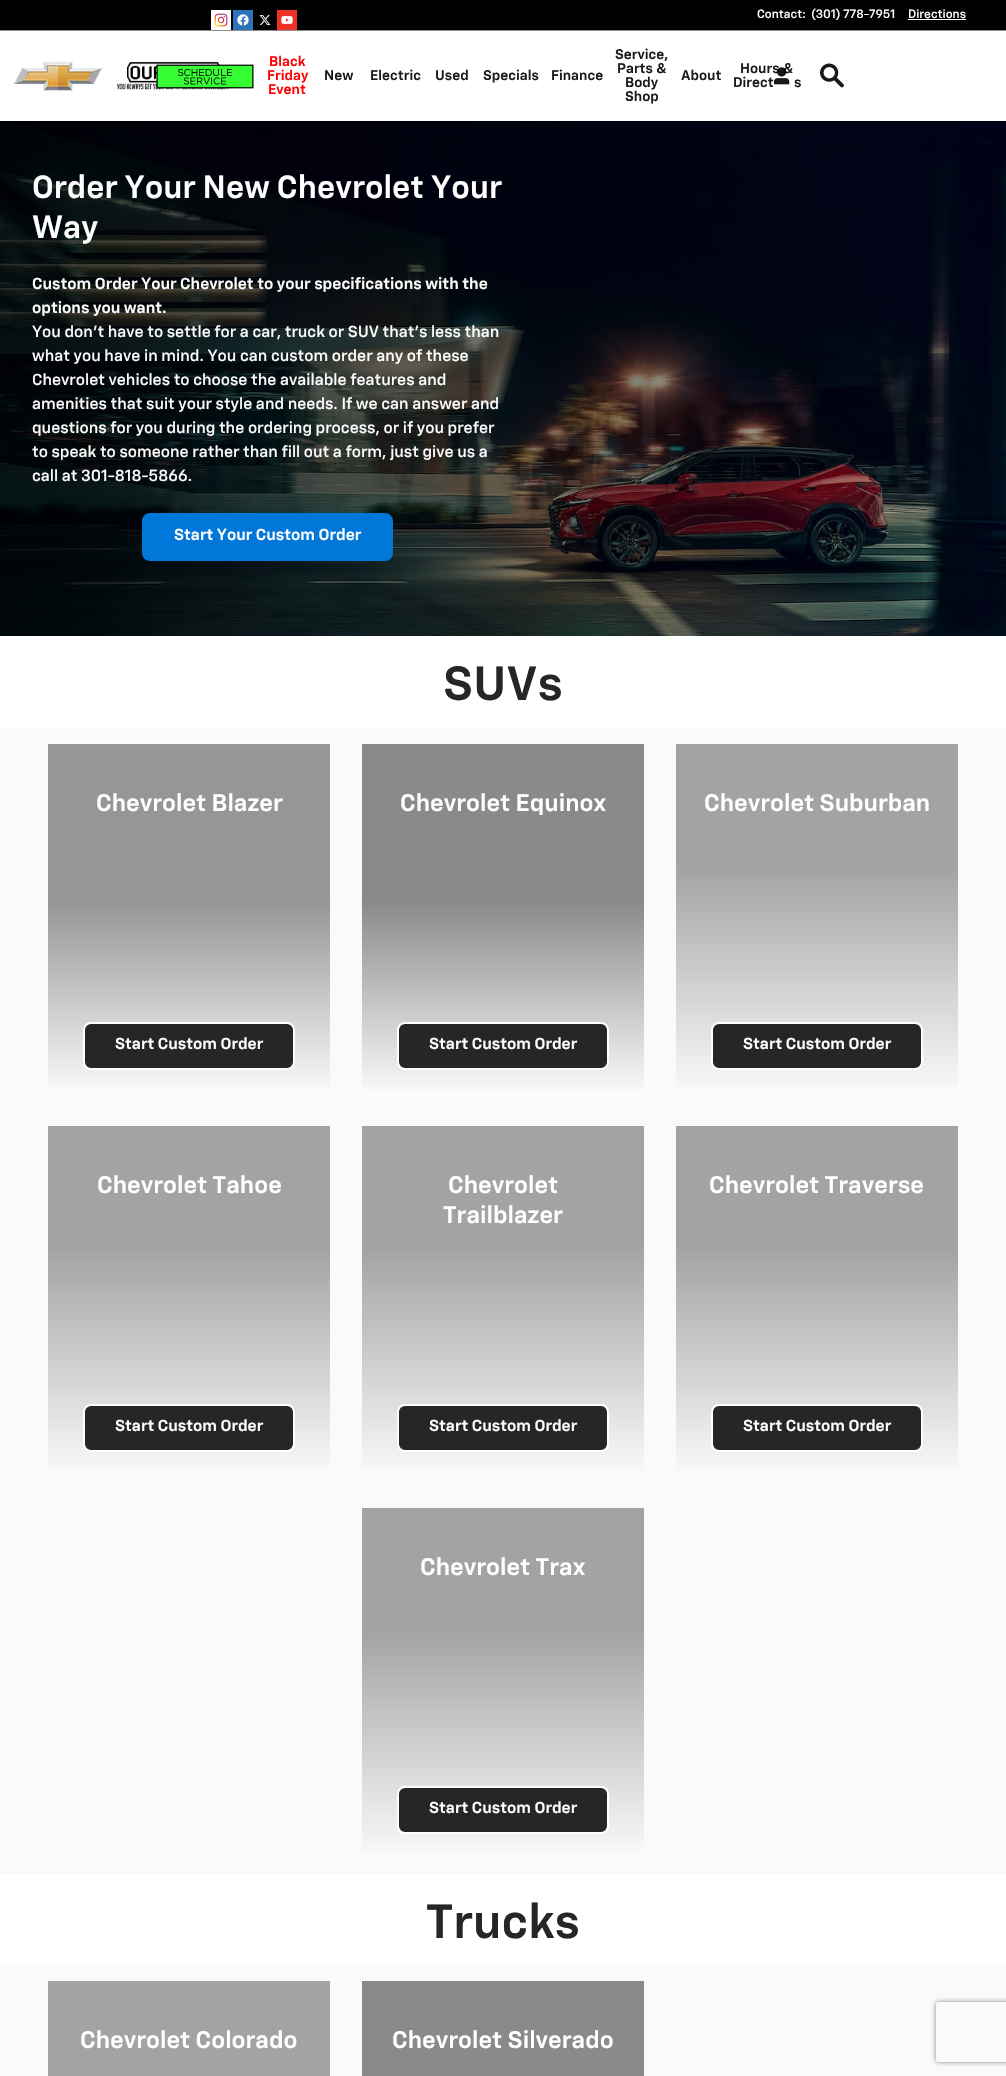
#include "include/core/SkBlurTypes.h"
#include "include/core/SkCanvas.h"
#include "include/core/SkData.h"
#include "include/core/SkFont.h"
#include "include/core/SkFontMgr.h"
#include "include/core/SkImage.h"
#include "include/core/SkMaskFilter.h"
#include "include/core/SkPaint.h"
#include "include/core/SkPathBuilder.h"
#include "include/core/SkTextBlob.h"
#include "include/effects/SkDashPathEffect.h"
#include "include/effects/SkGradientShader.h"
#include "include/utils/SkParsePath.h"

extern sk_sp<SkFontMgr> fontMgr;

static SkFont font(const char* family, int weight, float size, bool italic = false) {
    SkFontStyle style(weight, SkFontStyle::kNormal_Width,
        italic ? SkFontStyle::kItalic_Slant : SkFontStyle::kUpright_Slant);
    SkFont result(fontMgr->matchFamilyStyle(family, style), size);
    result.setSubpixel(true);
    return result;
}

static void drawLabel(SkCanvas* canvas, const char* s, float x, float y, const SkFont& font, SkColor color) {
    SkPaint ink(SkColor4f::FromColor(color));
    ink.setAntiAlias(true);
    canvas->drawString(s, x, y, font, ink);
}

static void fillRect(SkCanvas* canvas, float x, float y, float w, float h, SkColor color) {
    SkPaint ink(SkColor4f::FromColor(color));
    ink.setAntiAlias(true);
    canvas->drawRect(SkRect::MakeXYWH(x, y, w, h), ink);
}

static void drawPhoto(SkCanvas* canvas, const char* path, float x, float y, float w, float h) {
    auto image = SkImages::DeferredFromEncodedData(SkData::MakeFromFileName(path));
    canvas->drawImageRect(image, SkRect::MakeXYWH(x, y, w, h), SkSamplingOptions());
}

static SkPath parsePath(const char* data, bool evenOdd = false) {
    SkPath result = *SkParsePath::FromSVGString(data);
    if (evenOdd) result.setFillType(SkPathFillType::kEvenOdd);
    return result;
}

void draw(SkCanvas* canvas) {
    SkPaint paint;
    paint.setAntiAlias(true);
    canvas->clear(0xFFFFFFFF);
    fillRect(canvas, 0, 0, 1006, 30, 0xFF000000);
    fillRect(canvas, 0, 30, 1006, 1, 0xFF8C8C8C);
    drawPhoto(canvas, "assets/img1.png", 211, 10, 20, 20);
    drawPhoto(canvas, "assets/img2.png", 233, 10, 20, 20);
    drawPhoto(canvas, "assets/img3.png", 259, 15, 12, 10);
    drawPhoto(canvas, "assets/img4.png", 277, 10, 20, 20);
    SkFont font1 = font("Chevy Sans", 500, 12);
    drawLabel(canvas, "Contact:", 757, 18, font1, 0xFFFFFFFF);
    drawLabel(canvas, "(301) 778-7951", 811, 18, font1, 0xFFFFFFFF);
    drawLabel(canvas, "Directions", 908, 18, font1, 0xFFFFFFFF);
    fillRect(canvas, 908, 19, 58, 1, 0xFFFFFFFF);
    drawPhoto(canvas, "assets/img5.png", 13, 61, 90, 30);
    drawPhoto(canvas, "assets/img6.png", 115, 62, 114, 28);
    drawPhoto(canvas, "assets/img7.png", 156, 64, 98, 25);
    SkFont font2 = font("Chevy Sans", 600, 14);
    drawLabel(canvas, "Black", 269, 66, font2, 0xFFFF0000);
    drawLabel(canvas, "Friday", 267, 80, font2, 0xFFFF0000);
    drawLabel(canvas, "Event", 268, 94, font2, 0xFFFF0000);
    drawLabel(canvas, "New", 324, 80, font2, 0xFF1A1A1A);
    drawLabel(canvas, "Electric", 370, 80, font2, 0xFF1A1A1A);
    drawLabel(canvas, "Used", 435, 80, font2, 0xFF1A1A1A);
    drawLabel(canvas, "Specials", 483, 80, font2, 0xFF1A1A1A);
    drawLabel(canvas, "Finance", 551, 80, font2, 0xFF1A1A1A);
    drawLabel(canvas, "Service,", 615, 59, font2, 0xFF1A1A1A);
    drawLabel(canvas, "Parts &", 617, 73, font2, 0xFF1A1A1A);
    drawLabel(canvas, "Body", 625, 87, font2, 0xFF1A1A1A);
    drawLabel(canvas, "Shop", 625, 101, font2, 0xFF1A1A1A);
    drawLabel(canvas, "About", 681, 80, font2, 0xFF1A1A1A);
    drawLabel(canvas, "Hours &", 740, 73, font2, 0xFF1A1A1A);
    drawLabel(canvas, "Direct", 733, 87, font2, 0xFF1A1A1A);
    drawLabel(canvas, "s", 794, 87, font2, 0xFF1A1A1A);
    drawPhoto(canvas, "assets/img8.png", 820, 63, 24, 25);
    drawPhoto(canvas, "assets/img9.png", 773, 67, 17, 18);
    drawPhoto(canvas, "assets/img10.png", 0, 121, 1006, 515);
    SkFont font3 = font("Chevy Sans", 600, 32);
    drawLabel(canvas, "Order Your New Chevrolet Your", 32, 198, font3, 0xFFFFFFFF);
    drawLabel(canvas, "Way", 32, 238, font3, 0xFFFFFFFF);
    SkFont font4 = font("Chevy Sans", 600, 16);
    drawLabel(canvas, "Custom Order Your Chevrolet to your specifications with the", 32, 289, font4, 0xFFFFFFFF);
    drawLabel(canvas, "options you want.", 32, 313, font4, 0xFFFFFFFF);
    SkFont font5 = font("Chevy Sans", 500, 16);
    drawLabel(canvas, "You don't have to settle for a car, truck or SUV that's less than", 32, 337, font5, 0xFFFFFFFF);
    drawLabel(canvas, "what you have in mind. You can custom order any of these", 32, 361, font5, 0xFFFFFFFF);
    drawLabel(canvas, "Chevrolet vehicles to choose the available features and", 32, 385, font5, 0xFFFFFFFF);
    drawLabel(canvas, "amenities that suit your style and needs. If we can answer and", 32, 409, font5, 0xFFFFFFFF);
    drawLabel(canvas, "questions for you during the ordering process, or if you prefer", 32, 433, font5, 0xFFFFFFFF);
    drawLabel(canvas, "to speak to someone rather than fill out a form, just give us a", 32, 457, font5, 0xFFFFFFFF);
    drawLabel(canvas, "call at 301-818-5866.", 32, 481, font5, 0xFFFFFFFF);
    paint.setColor(0xFF0077D9);
    canvas->drawRoundRect(SkRect::MakeXYWH(143, 514, 249, 46), 7, 7, paint);
    paint.setStroke(true);
    paint.setStrokeWidth(2);
    canvas->drawRoundRect(SkRect::MakeXYWH(143, 514, 249, 46), 7, 7, paint);
    drawLabel(canvas, "Start Your Custom Order", 174, 540, font4, 0xFFFFFFFF);
    SkFont font6 = font("Chevy Sans", 600, 48);
    drawLabel(canvas, "SUVs", 443, 700, font6, 0xFF262626);
    fillRect(canvas, 0, 728, 1006, 1146, 0xFFFAFAFA);
    paint.setStroke(false);
    {
        const SkColor colors[] = {0xFF969696, 0xFFFAFAFA};
        const float stops[] = {0.45f, 1};
        const SkPoint ends[] = {{189, 744}, {189, 1094}};
        paint.setShader(SkGradientShader::MakeLinear(ends, colors, stops, 2, SkTileMode::kClamp));
        paint.setAlpha(255);
    }
    canvas->drawRect(SkRect::MakeXYWH(48, 744, 282, 345), paint);
    SkFont font7 = font("Chevy Sans", 600, 24);
    drawLabel(canvas, "Chevrolet Blazer", 96, 811, font7, 0xFFFFFFFF);
    paint.setShader(nullptr);
    paint.setColor(0xFF262626);
    canvas->drawRoundRect(SkRect::MakeXYWH(84, 1023, 210, 46), 7, 7, paint);
    paint.setStroke(true);
    paint.setColor(0xFFFFFFFF);
    canvas->drawRoundRect(SkRect::MakeXYWH(84, 1023, 210, 46), 7, 7, paint);
    drawLabel(canvas, "Start Custom Order", 115, 1049, font4, 0xFFFFFFFF);
    paint.setStroke(false);
    {
        const SkColor colors[] = {0xFF8A8A8A, 0xFFFAFAFA};
        const float stops[] = {0.45f, 1};
        const SkPoint ends[] = {{503, 744}, {503, 1094}};
        paint.setShader(SkGradientShader::MakeLinear(ends, colors, stops, 2, SkTileMode::kClamp));
        paint.setAlpha(255);
    }
    canvas->drawRect(SkRect::MakeXYWH(362, 744, 282, 346), paint);
    drawLabel(canvas, "Chevrolet Equinox", 400, 811, font7, 0xFFFFFFFF);
    paint.setShader(nullptr);
    paint.setColor(0xFF262626);
    canvas->drawRoundRect(SkRect::MakeXYWH(398, 1023, 210, 46), 7, 7, paint);
    paint.setStroke(true);
    paint.setColor(0xFFFFFFFF);
    canvas->drawRoundRect(SkRect::MakeXYWH(398, 1023, 210, 46), 7, 7, paint);
    drawLabel(canvas, "Start Custom Order", 429, 1049, font4, 0xFFFFFFFF);
    paint.setStroke(false);
    {
        const SkColor colors[] = {0xFFA3A3A3, 0xFFFAFAFA};
        const float stops[] = {0.35f, 1};
        const SkPoint ends[] = {{817, 744}, {817, 1094}};
        paint.setShader(SkGradientShader::MakeLinear(ends, colors, stops, 2, SkTileMode::kClamp));
        paint.setAlpha(255);
    }
    canvas->drawRect(SkRect::MakeXYWH(676, 744, 282, 343), paint);
    drawLabel(canvas, "Chevrolet Suburban", 704, 811, font7, 0xFFFFFFFF);
    paint.setShader(nullptr);
    paint.setColor(0xFF262626);
    canvas->drawRoundRect(SkRect::MakeXYWH(712, 1023, 210, 46), 7, 7, paint);
    paint.setStroke(true);
    paint.setColor(0xFFFFFFFF);
    canvas->drawRoundRect(SkRect::MakeXYWH(712, 1023, 210, 46), 7, 7, paint);
    drawLabel(canvas, "Start Custom Order", 743, 1049, font4, 0xFFFFFFFF);
    paint.setStroke(false);
    {
        const SkColor colors[] = {0xFFA3A3A3, 0xFFFAFAFA};
        const float stops[] = {0.35f, 1};
        const SkPoint ends[] = {{189, 1126}, {189, 1476}};
        paint.setShader(SkGradientShader::MakeLinear(ends, colors, stops, 2, SkTileMode::kClamp));
        paint.setAlpha(255);
    }
    canvas->drawRect(SkRect::MakeXYWH(48, 1126, 282, 343), paint);
    drawLabel(canvas, "Chevrolet Tahoe", 97, 1193, font7, 0xFFFFFFFF);
    paint.setShader(nullptr);
    paint.setColor(0xFF262626);
    canvas->drawRoundRect(SkRect::MakeXYWH(84, 1405, 210, 46), 7, 7, paint);
    paint.setStroke(true);
    paint.setColor(0xFFFFFFFF);
    canvas->drawRoundRect(SkRect::MakeXYWH(84, 1405, 210, 46), 7, 7, paint);
    drawLabel(canvas, "Start Custom Order", 115, 1431, font4, 0xFFFFFFFF);
    paint.setStroke(false);
    {
        const SkColor colors[] = {0xFFA3A3A3, 0xFFFAFAFA};
        const float stops[] = {0.35f, 1};
        const SkPoint ends[] = {{503, 1126}, {503, 1476}};
        paint.setShader(SkGradientShader::MakeLinear(ends, colors, stops, 2, SkTileMode::kClamp));
        paint.setAlpha(255);
    }
    canvas->drawRect(SkRect::MakeXYWH(362, 1126, 282, 343), paint);
    drawLabel(canvas, "Chevrolet", 448, 1193, font7, 0xFFFFFFFF);
    drawLabel(canvas, "Trailblazer", 443, 1223, font7, 0xFFFFFFFF);
    paint.setShader(nullptr);
    paint.setColor(0xFF262626);
    canvas->drawRoundRect(SkRect::MakeXYWH(398, 1405, 210, 46), 7, 7, paint);
    paint.setStroke(true);
    paint.setColor(0xFFFFFFFF);
    canvas->drawRoundRect(SkRect::MakeXYWH(398, 1405, 210, 46), 7, 7, paint);
    drawLabel(canvas, "Start Custom Order", 429, 1431, font4, 0xFFFFFFFF);
    paint.setStroke(false);
    {
        const SkColor colors[] = {0xFFA3A3A3, 0xFFFAFAFA};
        const float stops[] = {0.35f, 1};
        const SkPoint ends[] = {{817, 1126}, {817, 1476}};
        paint.setShader(SkGradientShader::MakeLinear(ends, colors, stops, 2, SkTileMode::kClamp));
        paint.setAlpha(255);
    }
    canvas->drawRect(SkRect::MakeXYWH(676, 1126, 282, 343), paint);
    drawLabel(canvas, "Chevrolet Traverse", 709, 1193, font7, 0xFFFFFFFF);
    paint.setShader(nullptr);
    paint.setColor(0xFF262626);
    canvas->drawRoundRect(SkRect::MakeXYWH(712, 1405, 210, 46), 7, 7, paint);
    paint.setStroke(true);
    paint.setColor(0xFFFFFFFF);
    canvas->drawRoundRect(SkRect::MakeXYWH(712, 1405, 210, 46), 7, 7, paint);
    drawLabel(canvas, "Start Custom Order", 743, 1431, font4, 0xFFFFFFFF);
    paint.setStroke(false);
    {
        const SkColor colors[] = {0xFFA3A3A3, 0xFFFAFAFA};
        const float stops[] = {0.35f, 1};
        const SkPoint ends[] = {{503, 1508}, {503, 1858}};
        paint.setShader(SkGradientShader::MakeLinear(ends, colors, stops, 2, SkTileMode::kClamp));
        paint.setAlpha(255);
    }
    canvas->drawRect(SkRect::MakeXYWH(362, 1508, 282, 343), paint);
    drawLabel(canvas, "Chevrolet Trax", 420, 1575, font7, 0xFFFFFFFF);
    paint.setShader(nullptr);
    paint.setColor(0xFF262626);
    canvas->drawRoundRect(SkRect::MakeXYWH(398, 1787, 210, 46), 7, 7, paint);
    paint.setStroke(true);
    paint.setColor(0xFFFFFFFF);
    canvas->drawRoundRect(SkRect::MakeXYWH(398, 1787, 210, 46), 7, 7, paint);
    drawLabel(canvas, "Start Custom Order", 429, 1813, font4, 0xFFFFFFFF);
    drawLabel(canvas, "Trucks", 426, 1938, font6, 0xFF262626);
    fillRect(canvas, 0, 1965, 1006, 111, 0xFFFAFAFA);
    paint.setStroke(false);
    {
        const SkColor colors[] = {0xFFA3A3A3, 0xFFFAFAFA};
        const float stops[] = {0.35f, 1};
        const SkPoint ends[] = {{189, 1981}, {189, 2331}};
        paint.setShader(SkGradientShader::MakeLinear(ends, colors, stops, 2, SkTileMode::kClamp));
        paint.setAlpha(255);
    }
    canvas->drawRect(SkRect::MakeXYWH(48, 1981, 282, 95), paint);
    drawLabel(canvas, "Chevrolet Colorado", 80, 2048, font7, 0xFFFFFFFF);
    {
        const SkColor colors[] = {0xFF8A8A8A, 0xFFFAFAFA};
        const float stops[] = {0.4f, 1};
        const SkPoint ends[] = {{503, 1981}, {503, 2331}};
        paint.setShader(SkGradientShader::MakeLinear(ends, colors, stops, 2, SkTileMode::kClamp));
        paint.setAlpha(255);
    }
    canvas->drawRect(SkRect::MakeXYWH(362, 1981, 282, 95), paint);
    drawLabel(canvas, "Chevrolet Silverado", 392, 2048, font7, 0xFFFFFFFF);
    canvas->save();
    canvas->clipPath(parsePath("M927 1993H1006V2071H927ZM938 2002H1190C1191 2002 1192 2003 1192 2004V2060C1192 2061 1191 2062 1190 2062H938C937 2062 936 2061 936 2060V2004C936 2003 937 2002 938 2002Z", true), true);
    paint.setShader(nullptr);
    paint.setColor(0xFF808080);
    paint.setMaskFilter(SkMaskFilter::MakeBlur(kNormal_SkBlurStyle, 2.5f));
    canvas->drawRoundRect(SkRect::MakeXYWH(936, 2002, 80, 60), 2, 2, paint);
    paint.setMaskFilter(nullptr);
    canvas->restore();
}
